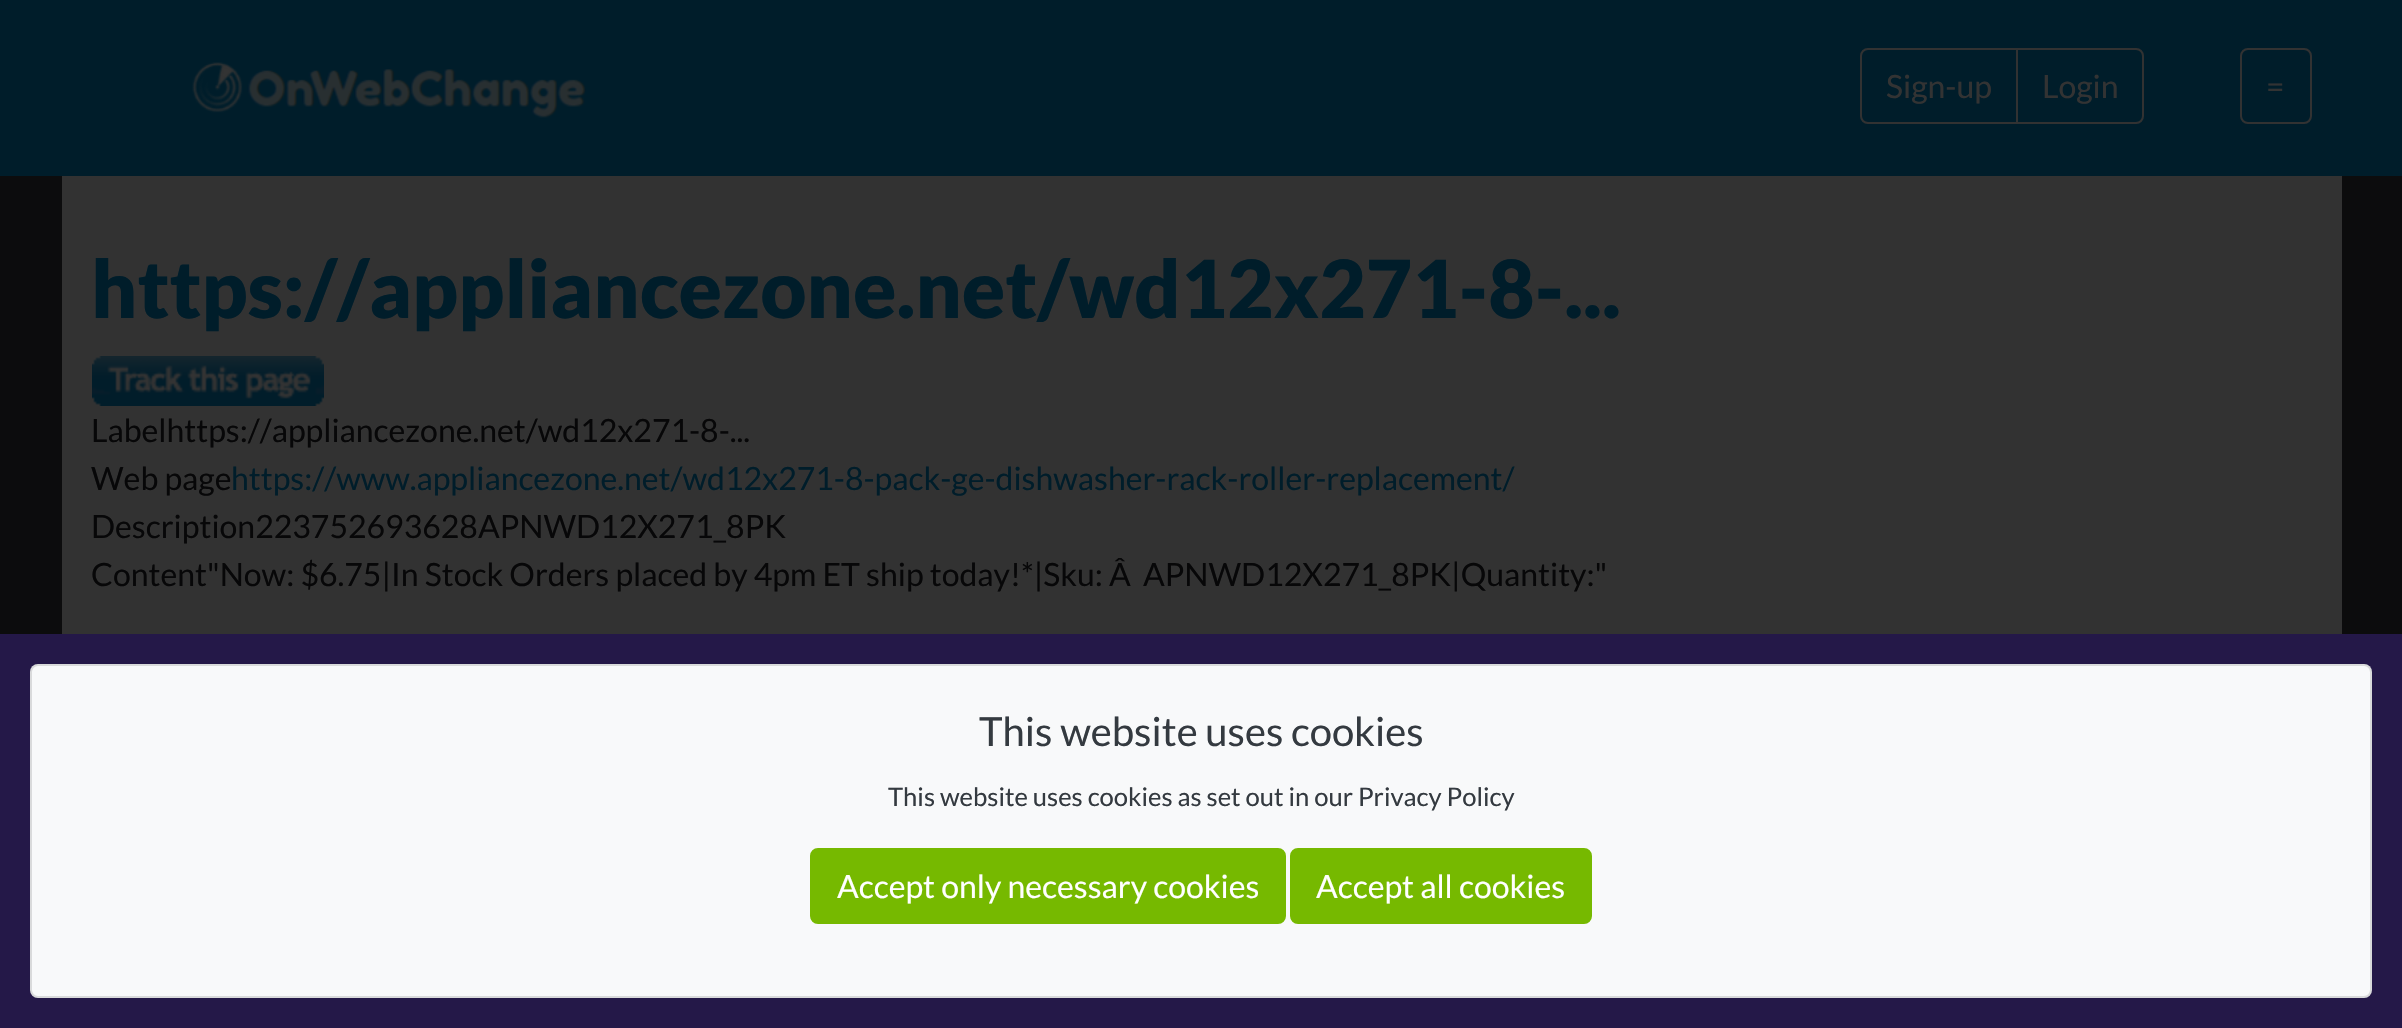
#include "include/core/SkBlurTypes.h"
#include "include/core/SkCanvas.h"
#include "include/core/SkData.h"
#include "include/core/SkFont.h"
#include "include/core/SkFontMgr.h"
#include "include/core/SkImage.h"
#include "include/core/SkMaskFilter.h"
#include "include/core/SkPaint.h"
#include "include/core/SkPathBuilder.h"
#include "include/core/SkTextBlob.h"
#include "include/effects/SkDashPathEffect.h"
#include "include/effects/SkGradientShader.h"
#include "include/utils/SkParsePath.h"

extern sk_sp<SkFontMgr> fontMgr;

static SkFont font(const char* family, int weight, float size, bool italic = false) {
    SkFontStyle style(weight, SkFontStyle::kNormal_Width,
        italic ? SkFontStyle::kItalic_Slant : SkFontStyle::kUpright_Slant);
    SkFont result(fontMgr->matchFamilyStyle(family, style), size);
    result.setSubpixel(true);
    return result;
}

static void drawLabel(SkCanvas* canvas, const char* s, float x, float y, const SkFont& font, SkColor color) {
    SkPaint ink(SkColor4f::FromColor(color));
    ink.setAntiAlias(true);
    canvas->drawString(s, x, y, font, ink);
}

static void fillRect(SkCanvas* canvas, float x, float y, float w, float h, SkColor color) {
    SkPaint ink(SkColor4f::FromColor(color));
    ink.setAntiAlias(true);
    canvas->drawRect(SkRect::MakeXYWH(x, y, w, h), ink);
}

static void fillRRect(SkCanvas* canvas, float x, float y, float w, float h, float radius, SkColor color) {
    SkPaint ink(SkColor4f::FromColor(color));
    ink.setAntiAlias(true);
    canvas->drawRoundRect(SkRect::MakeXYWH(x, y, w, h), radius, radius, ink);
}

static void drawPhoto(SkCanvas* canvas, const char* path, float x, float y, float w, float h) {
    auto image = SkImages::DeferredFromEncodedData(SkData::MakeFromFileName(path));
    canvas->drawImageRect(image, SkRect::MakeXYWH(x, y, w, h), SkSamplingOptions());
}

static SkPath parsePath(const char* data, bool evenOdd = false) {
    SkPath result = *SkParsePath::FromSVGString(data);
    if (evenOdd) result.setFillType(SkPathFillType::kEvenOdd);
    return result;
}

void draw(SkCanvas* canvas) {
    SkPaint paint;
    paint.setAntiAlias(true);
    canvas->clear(0xFF0C0C0D);
    fillRect(canvas, 0, 0, 2402, 176, 0xFF001D2A);
    drawPhoto(canvas, "assets/img1.png", 192, 62, 394, 56);
    paint.setStroke(true);
    paint.setStrokeWidth(2);
    paint.setColor(0xFF323232);
    canvas->drawPath(parsePath("M1868 49H2017V123H1868C1864 123 1861 120 1861 116V56C1861 52 1864 49 1868 49Z"), paint);
    SkFont font1 = font("Lato", 400, 32);
    drawLabel(canvas, "Sign-up", 1886, 98, font1, 0xFF333333);
    canvas->drawPath(parsePath("M2017 49H2136C2140 49 2143 52 2143 56V116C2143 120 2140 123 2136 123H2017Z"), paint);
    drawLabel(canvas, "Login", 2042, 98, font1, 0xFF333333);
    canvas->drawRoundRect(SkRect::MakeXYWH(2241, 49, 70, 74), 7, 7, paint);
    drawLabel(canvas, "=", 2266, 98, font1, 0xFF333333);
    fillRect(canvas, 62, 176, 2280, 458, 0xFF323232);
    SkFont font2 = font("Lato", 900, 80);
    drawLabel(canvas, "https://appliancezone.net/wd12x271-8-...", 91, 318, font2, 0xFF001D2A);
    drawPhoto(canvas, "assets/img2.png", 92, 356, 232, 50);
    drawLabel(canvas, "Labelhttps://appliancezone.net/wd12x271-8-...", 91, 442, font1, 0xFF070708);
    drawLabel(canvas, "Web page", 91, 490, font1, 0xFF070708);
    drawLabel(canvas, "https://www.appliancezone.net/wd12x271-8-pack-ge-dishwasher-rack-roller-replacement/", 231, 490, font1, 0xFF001D2A);
    drawLabel(canvas, "Description223752693628APNWD12X271_8PK", 91, 538, font1, 0xFF070708);
    drawLabel(canvas, "Content\"Now: $6.75|In Stock Orders placed by 4pm ET ship today!*|Sku: Â", 91, 586, font1, 0xFF070708);
    drawLabel(canvas, "APNWD12X271_8PK|Quantity:\"", 1143, 586, font1, 0xFF070708);
    fillRect(canvas, 0, 634, 2402, 394, 0xFF241848);
    fillRRect(canvas, 30, 664, 2342, 334, 8, 0xFFF8F9FA);
    paint.setColor(0x1F000000);
    canvas->drawRoundRect(SkRect::MakeXYWH(31, 665, 2340, 332), 7, 7, paint);
    SkFont font3 = font("Lato", 400, 40);
    drawLabel(canvas, "This website uses cookies", 979, 746, font3, 0xFF343A40);
    SkFont font4 = font("Lato", 400, 25.6f);
    drawLabel(canvas, "This website uses cookies as set out in our Privacy Policy", 888, 806, font4, 0xFF343A40);
    paint.setStroke(false);
    paint.setColor(0xFF76B900);
    canvas->drawRoundRect(SkRect::MakeXYWH(811, 849, 474, 74), 7, 7, paint);
    paint.setStroke(true);
    canvas->drawRoundRect(SkRect::MakeXYWH(811, 849, 474, 74), 7, 7, paint);
    drawLabel(canvas, "Accept only necessary cookies", 837, 898, font1, 0xFFFFFFFF);
    paint.setStroke(false);
    canvas->drawRoundRect(SkRect::MakeXYWH(1291, 849, 300, 74), 7, 7, paint);
    paint.setStroke(true);
    canvas->drawRoundRect(SkRect::MakeXYWH(1291, 849, 300, 74), 7, 7, paint);
    drawLabel(canvas, "Accept all cookies", 1316, 898, font1, 0xFFFFFFFF);
}
